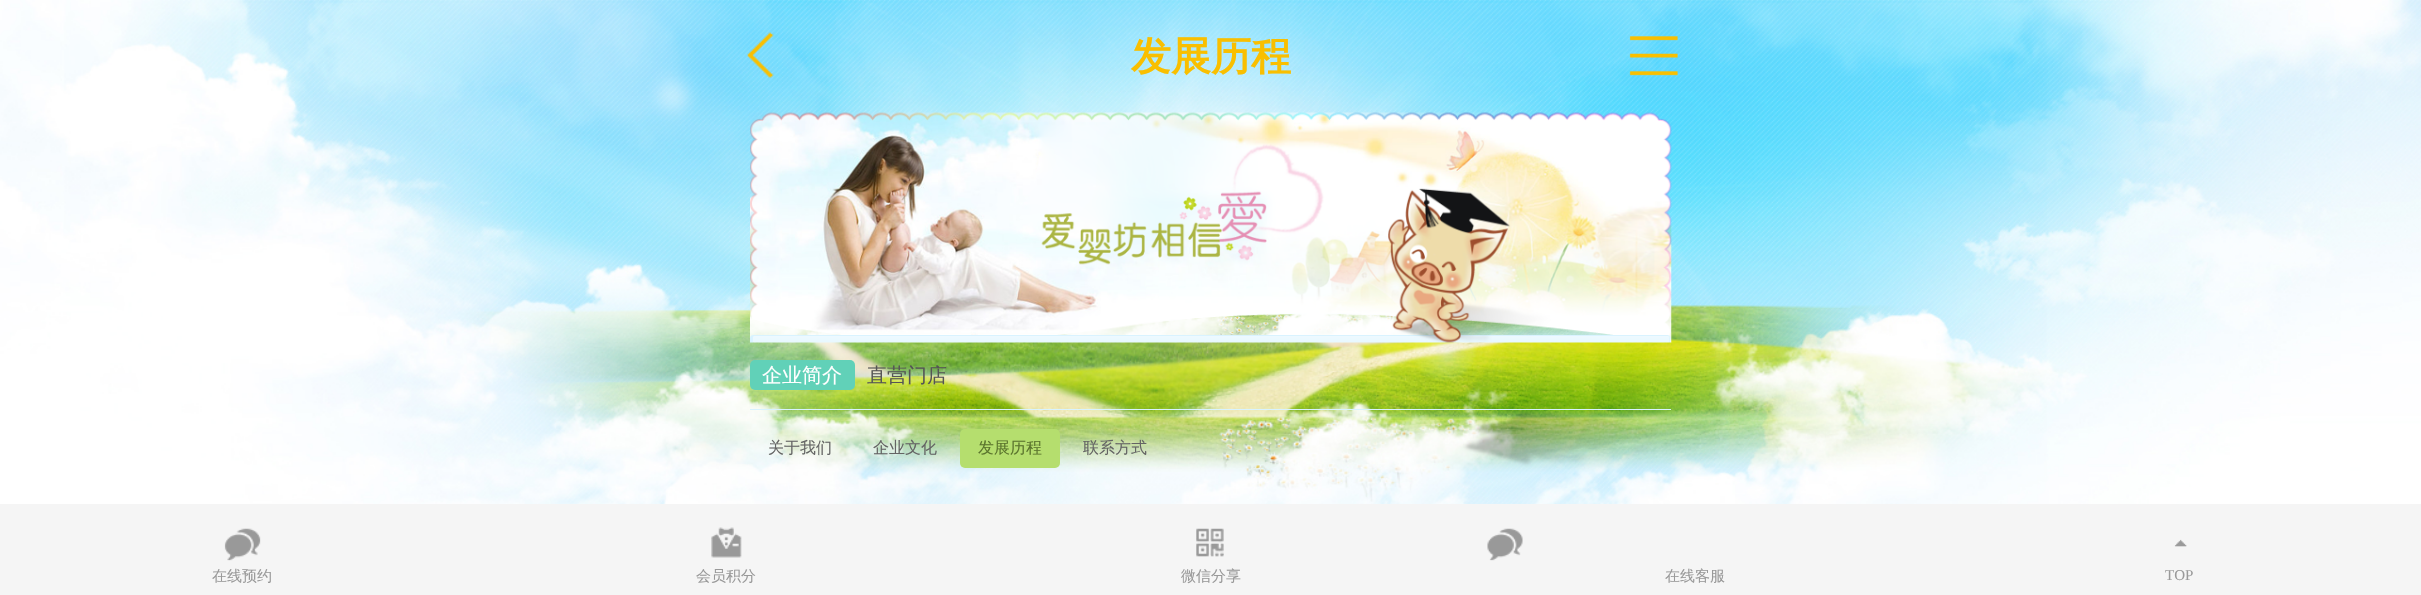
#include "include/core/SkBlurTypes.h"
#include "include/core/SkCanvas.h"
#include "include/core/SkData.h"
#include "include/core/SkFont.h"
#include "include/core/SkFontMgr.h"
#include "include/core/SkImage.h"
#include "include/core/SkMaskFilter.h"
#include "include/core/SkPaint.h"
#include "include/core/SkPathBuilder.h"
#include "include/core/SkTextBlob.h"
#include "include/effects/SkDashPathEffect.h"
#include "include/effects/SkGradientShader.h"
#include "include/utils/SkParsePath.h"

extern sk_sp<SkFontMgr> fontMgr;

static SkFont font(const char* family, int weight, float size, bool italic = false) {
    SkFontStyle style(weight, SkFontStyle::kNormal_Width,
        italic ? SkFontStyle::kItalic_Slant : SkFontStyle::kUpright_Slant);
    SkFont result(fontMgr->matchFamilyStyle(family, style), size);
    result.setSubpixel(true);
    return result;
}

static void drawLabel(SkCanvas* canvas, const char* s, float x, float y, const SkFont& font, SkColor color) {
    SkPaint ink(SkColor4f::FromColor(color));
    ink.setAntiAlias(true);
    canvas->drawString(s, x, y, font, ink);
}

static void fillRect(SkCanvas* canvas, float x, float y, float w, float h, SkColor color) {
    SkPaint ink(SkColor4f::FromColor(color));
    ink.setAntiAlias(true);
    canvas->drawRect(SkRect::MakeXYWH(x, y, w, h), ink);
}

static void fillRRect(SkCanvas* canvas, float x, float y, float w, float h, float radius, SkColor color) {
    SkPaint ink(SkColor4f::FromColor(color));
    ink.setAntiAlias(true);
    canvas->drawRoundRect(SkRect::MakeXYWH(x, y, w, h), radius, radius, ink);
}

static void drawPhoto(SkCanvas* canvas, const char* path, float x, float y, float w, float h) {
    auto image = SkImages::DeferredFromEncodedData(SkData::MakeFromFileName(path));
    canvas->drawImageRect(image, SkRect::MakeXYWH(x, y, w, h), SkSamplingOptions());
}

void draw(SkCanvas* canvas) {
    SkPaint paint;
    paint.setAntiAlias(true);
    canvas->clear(0xFFFFFFFF);
    drawPhoto(canvas, "assets/img1.png", 0, 0, 2421, 504);
    drawPhoto(canvas, "assets/img2.png", 747, 32, 27, 46);
    SkFont font1 = font("WenQuanYi Zen Hei", 700, 40);
    drawLabel(canvas, "发展历程", 1131, 70, font1, 0xFFF9BF00);
    drawPhoto(canvas, "assets/img3.png", 1629, 36, 49, 40);
    drawPhoto(canvas, "assets/img4.png", 750, 112, 922, 231);
    fillRect(canvas, 750, 409, 921, 1, 0xFFD8F3FF);
    fillRRect(canvas, 750, 360, 105, 30, 5, 0xFF61D1B8);
    SkFont font2 = font("WenQuanYi Zen Hei", 500, 20);
    drawLabel(canvas, "企业简介", 762, 382, font2, 0xFFFFFFFF);
    drawLabel(canvas, "直营门店", 867, 382, font2, 0xFF555555);
    SkFont font3 = font("WenQuanYi Zen Hei", 500, 16);
    drawLabel(canvas, "关于我们", 768, 453, font3, 0xFF646464);
    drawLabel(canvas, "企业文化", 873, 453, font3, 0xFF646464);
    fillRRect(canvas, 960, 429, 100, 39, 5, 0xFFB5DE6E);
    drawLabel(canvas, "发展历程", 978, 453, font3, 0xFF5B752D);
    drawLabel(canvas, "联系方式", 1083, 453, font3, 0xFF646464);
    fillRect(canvas, 0, 504, 2421, 91, 0xFFF5F5F5);
    drawPhoto(canvas, "assets/img5.png", 224, 528, 37, 33);
    SkFont font4 = font("WenQuanYi Zen Hei", 500, 15);
    drawLabel(canvas, "在线预约", 212, 581, font4, 0xFF999999);
    drawPhoto(canvas, "assets/img6.png", 711, 527, 31, 31);
    drawLabel(canvas, "会员积分", 696, 581, font4, 0xFF999999);
    drawPhoto(canvas, "assets/img7.png", 1196, 528, 28, 29);
    drawLabel(canvas, "微信分享", 1181, 581, font4, 0xFF999999);
    drawPhoto(canvas, "assets/img8.png", 1487, 528, 36, 33);
    drawLabel(canvas, "在线客服", 1665, 581, font4, 0xFF999999);
    drawPhoto(canvas, "assets/img9.png", 2174, 539, 13, 8);
    SkFont font5 = font("Liberation Serif", 400, 15);
    drawLabel(canvas, "TOP", 2165, 580, font5, 0xFF999999);
}
